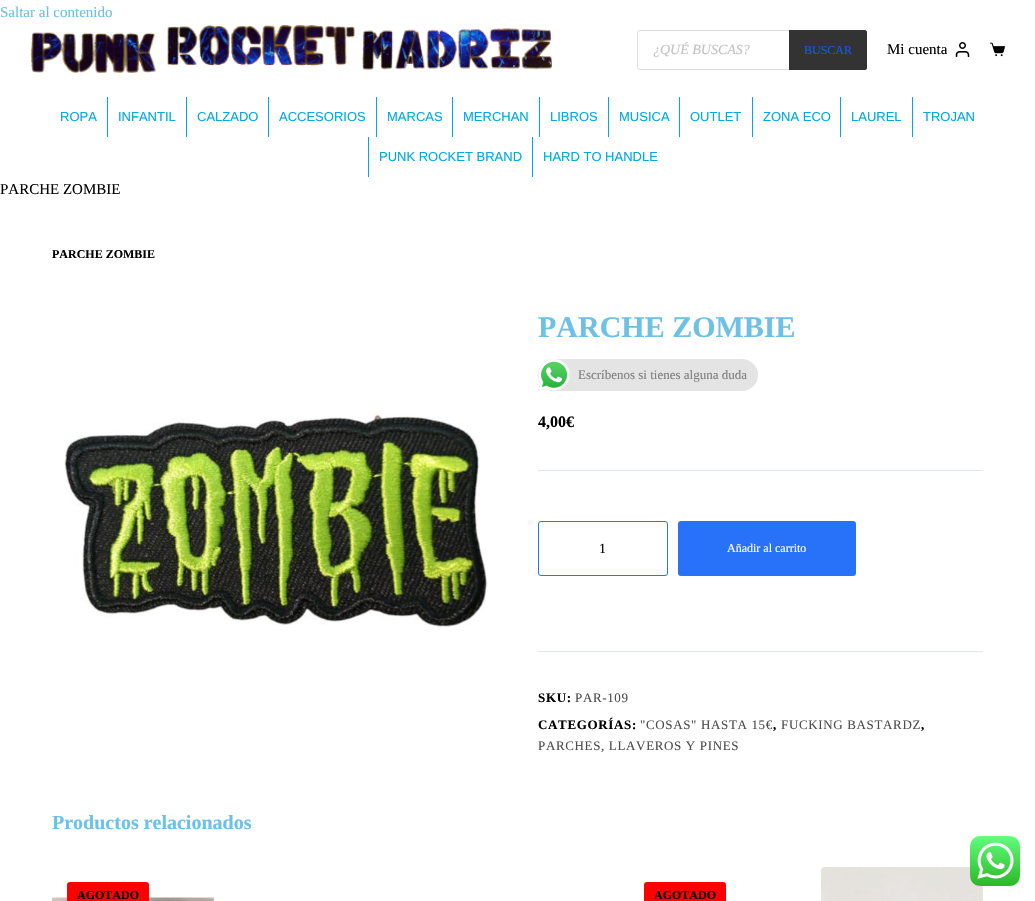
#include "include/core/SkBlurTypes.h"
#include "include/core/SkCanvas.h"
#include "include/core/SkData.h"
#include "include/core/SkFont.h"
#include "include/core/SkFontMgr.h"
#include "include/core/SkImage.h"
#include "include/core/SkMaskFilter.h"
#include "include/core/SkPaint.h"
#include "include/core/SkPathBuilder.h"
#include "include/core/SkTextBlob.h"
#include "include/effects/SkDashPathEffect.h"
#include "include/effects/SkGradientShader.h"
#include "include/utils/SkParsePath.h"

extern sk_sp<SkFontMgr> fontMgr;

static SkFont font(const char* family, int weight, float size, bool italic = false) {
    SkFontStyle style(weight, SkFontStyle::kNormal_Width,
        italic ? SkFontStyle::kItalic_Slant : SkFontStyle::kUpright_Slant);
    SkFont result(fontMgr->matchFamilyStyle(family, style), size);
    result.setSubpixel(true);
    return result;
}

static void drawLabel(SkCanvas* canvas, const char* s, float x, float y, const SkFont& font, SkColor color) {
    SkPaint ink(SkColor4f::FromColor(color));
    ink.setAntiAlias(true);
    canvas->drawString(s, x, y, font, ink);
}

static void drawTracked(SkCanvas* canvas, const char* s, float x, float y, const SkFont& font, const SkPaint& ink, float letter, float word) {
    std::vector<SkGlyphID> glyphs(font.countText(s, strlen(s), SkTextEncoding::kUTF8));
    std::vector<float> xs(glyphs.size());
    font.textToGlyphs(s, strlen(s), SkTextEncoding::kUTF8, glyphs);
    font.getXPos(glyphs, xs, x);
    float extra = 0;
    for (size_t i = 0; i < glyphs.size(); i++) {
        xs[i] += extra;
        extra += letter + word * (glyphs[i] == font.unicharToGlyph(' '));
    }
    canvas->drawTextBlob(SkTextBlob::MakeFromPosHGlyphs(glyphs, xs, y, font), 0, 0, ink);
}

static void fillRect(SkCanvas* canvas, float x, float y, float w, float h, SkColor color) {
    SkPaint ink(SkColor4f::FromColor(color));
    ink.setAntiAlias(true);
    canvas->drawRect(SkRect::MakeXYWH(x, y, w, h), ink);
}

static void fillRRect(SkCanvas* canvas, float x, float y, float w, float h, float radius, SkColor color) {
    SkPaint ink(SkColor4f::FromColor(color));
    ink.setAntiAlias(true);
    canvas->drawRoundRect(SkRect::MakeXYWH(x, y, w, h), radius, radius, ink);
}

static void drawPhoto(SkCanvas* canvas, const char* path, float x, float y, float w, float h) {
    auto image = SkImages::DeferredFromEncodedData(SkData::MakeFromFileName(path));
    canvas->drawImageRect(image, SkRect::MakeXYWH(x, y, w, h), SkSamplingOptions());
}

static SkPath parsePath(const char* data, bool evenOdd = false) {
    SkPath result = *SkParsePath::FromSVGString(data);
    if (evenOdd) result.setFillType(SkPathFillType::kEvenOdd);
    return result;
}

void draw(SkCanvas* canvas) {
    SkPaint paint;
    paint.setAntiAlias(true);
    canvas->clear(0xFFFFFFFF);
    SkFont font1 = font("Liberation Serif", 400, 15);
    drawLabel(canvas, "Saltar al contenido", 0, 17, font1, 0xFF6EC1E4);
    drawPhoto(canvas, "assets/img1.png", 30, 25, 522, 48);
    paint.setStroke(true);
    paint.setStrokeWidth(1);
    paint.setColor(0xFFDDDDDD);
    canvas->drawRoundRect(SkRect::MakeXYWH(637.5f, 30.5f, 229, 39), 2.5f, 2.5f, paint);
    SkFont font2 = font("Liberation Serif", 400, 14, true);
    drawLabel(canvas, "¿QUÉ BUSCAS?", 653, 54, font2, 0xFFC2C2C2);
    paint.setStroke(false);
    paint.setColor(0xFF333333);
    canvas->drawPath(parsePath("M789 30H865C866 30 867 31 867 32V68C867 69 866 70 865 70H789Z"), paint);
    SkFont font3 = font("Liberation Serif", 400, 12);
    drawLabel(canvas, "BUSCAR", 804, 54, font3, 0xFF1559ED);
    drawLabel(canvas, "Mi cuenta", 887, 54, font1, 0xFF000000);
    drawPhoto(canvas, "assets/img2.png", 955, 42, 15, 15);
    drawPhoto(canvas, "assets/img3.png", 990, 42, 15, 15);
    SkFont font4 = font("Liberation Sans", 400, 13);
    drawLabel(canvas, "ROPA", 60, 121, font4, 0xFF00A9E0);
    fillRect(canvas, 107, 97, 1, 40, 0xFF00A9E0);
    drawLabel(canvas, "INFANTIL", 118, 121, font4, 0xFF00A9E0);
    fillRect(canvas, 186, 97, 1, 40, 0xFF00A9E0);
    drawLabel(canvas, "CALZADO", 197, 121, font4, 0xFF00A9E0);
    fillRect(canvas, 268, 97, 1, 40, 0xFF00A9E0);
    drawLabel(canvas, "ACCESORIOS", 279, 121, font4, 0xFF00A9E0);
    fillRect(canvas, 376, 97, 1, 40, 0xFF00A9E0);
    drawLabel(canvas, "MARCAS", 387, 121, font4, 0xFF00A9E0);
    fillRect(canvas, 452, 97, 1, 40, 0xFF00A9E0);
    drawLabel(canvas, "MERCHAN", 463, 121, font4, 0xFF00A9E0);
    fillRect(canvas, 539, 97, 1, 40, 0xFF00A9E0);
    drawLabel(canvas, "LIBROS", 550, 121, font4, 0xFF00A9E0);
    fillRect(canvas, 608, 97, 1, 40, 0xFF00A9E0);
    drawLabel(canvas, "MUSICA", 619, 121, font4, 0xFF00A9E0);
    fillRect(canvas, 679, 97, 1, 40, 0xFF00A9E0);
    drawLabel(canvas, "OUTLET", 690, 121, font4, 0xFF00A9E0);
    fillRect(canvas, 752, 97, 1, 40, 0xFF00A9E0);
    drawLabel(canvas, "ZONA ECO", 763, 121, font4, 0xFF00A9E0);
    fillRect(canvas, 840, 97, 1, 40, 0xFF00A9E0);
    drawLabel(canvas, "LAUREL", 851, 121, font4, 0xFF00A9E0);
    fillRect(canvas, 912, 97, 1, 40, 0xFF00A9E0);
    drawLabel(canvas, "TROJAN", 923, 121, font4, 0xFF00A9E0);
    fillRect(canvas, 368, 137, 1, 40, 0xFF00A9E0);
    drawLabel(canvas, "PUNK ROCKET BRAND", 379, 161, font4, 0xFF00A9E0);
    fillRect(canvas, 532, 137, 1, 40, 0xFF00A9E0);
    drawLabel(canvas, "HARD TO HANDLE", 543, 161, font4, 0xFF00A9E0);
    drawLabel(canvas, "PARCHE ZOMBIE", 0, 194, font1, 0xFF000000);
    SkFont font5 = font("Liberation Serif", 700, 12);
    drawLabel(canvas, "PARCHE ZOMBIE", 52, 258, font5, 0xFF000000);
    drawPhoto(canvas, "assets/img4.png", 64, 411, 424, 217);
    SkFont font6 = font("Liberation Serif", 700, 30);
    drawLabel(canvas, "PARCHE ZOMBIE", 538, 337, font6, 0xFF6EC1E4);
    fillRRect(canvas, 538, 359, 220, 32, 16, 0xFFE4E4E4);
    drawPhoto(canvas, "assets/img5.png", 538, 359, 32, 32);
    SkFont font7 = font("Liberation Serif", 400, 13);
    drawLabel(canvas, "Escríbenos si tienes alguna duda", 578, 379, font7, 0xFF7F7D7D);
    SkFont font8 = font("Liberation Serif", 700, 16);
    drawLabel(canvas, "4,00€", 538, 427, font8, 0xFF000000);
    fillRect(canvas, 538, 470, 445, 1, 0xFFE1E8ED);
    paint.setStroke(true);
    paint.setColor(0xFF2872FA);
    canvas->drawRoundRect(SkRect::MakeXYWH(538.5f, 521.5f, 129, 54), 2.5f, 2.5f, paint);
    SkFont font9 = font("Liberation Serif", 400, 14);
    drawLabel(canvas, "1", 599, 553, font9, 0xFF000000);
    fillRRect(canvas, 678, 521, 178, 55, 3, 0xFF2872FA);
    drawLabel(canvas, "Añadir al carrito", 727, 552, font3, 0xFFFFFFFF);
    fillRect(canvas, 538, 651, 445, 1, 0xFFE1E8ED);
    SkFont font10 = font("Liberation Serif", 700, 13);
    paint.setStroke(false);
    paint.setColor(0xFF000000);
    drawTracked(canvas, "SKU:", 538, 702, font10, paint, 0.65f, 0);
    paint.setColor(0xFF4D4D4D);
    drawTracked(canvas, "PAR-109", 575, 702, font7, paint, 0.65f, 0);
    paint.setColor(0xFF000000);
    drawTracked(canvas, "CATEGORÍAS:", 538, 729, font10, paint, 0.65f, 0);
    paint.setColor(0xFF4D4D4D);
    drawTracked(canvas, "\"COSAS\" HASTA 15€", 640, 729, font7, paint, 0.65f, 0);
    paint.setColor(0xFF000000);
    drawTracked(canvas, ",", 773, 729, font10, paint, 0.65f, 0);
    paint.setColor(0xFF4D4D4D);
    drawTracked(canvas, "FUCKING BASTARDZ", 781, 729, font7, paint, 0.65f, 0);
    paint.setColor(0xFF000000);
    drawTracked(canvas, ",", 921, 729, font10, paint, 0.65f, 0);
    paint.setColor(0xFF4D4D4D);
    drawTracked(canvas, "PARCHES, LLAVEROS Y PINES", 538, 750, font7, paint, 0.65f, 0);
    SkFont font11 = font("Liberation Serif", 700, 20);
    drawLabel(canvas, "Productos relacionados", 52, 829, font11, 0xFF6EC1E4);
    drawPhoto(canvas, "assets/img6.png", 52, 897, 162, 4);
    fillRRect(canvas, 67, 882, 82, 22, 3, 0xFFFF0000);
    drawLabel(canvas, "AGOTADO", 77, 899, font5, 0xFF000000);
    fillRRect(canvas, 644, 882, 82, 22, 3, 0xFFFF0000);
    drawLabel(canvas, "AGOTADO", 654, 899, font5, 0xFF000000);
    drawPhoto(canvas, "assets/img7.png", 821, 867, 162, 34);
    drawPhoto(canvas, "assets/img8.png", 970, 836, 50, 50);
}
